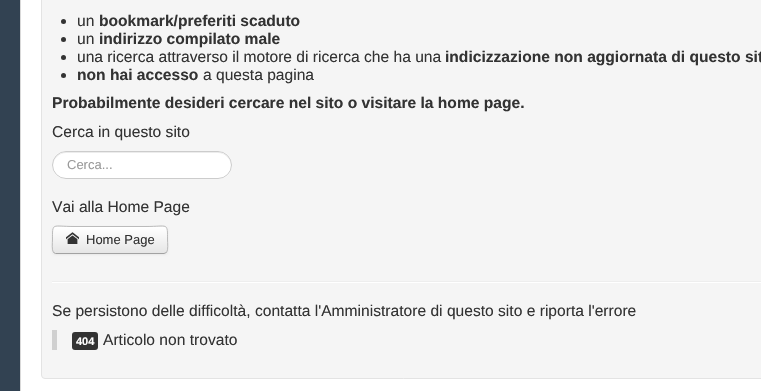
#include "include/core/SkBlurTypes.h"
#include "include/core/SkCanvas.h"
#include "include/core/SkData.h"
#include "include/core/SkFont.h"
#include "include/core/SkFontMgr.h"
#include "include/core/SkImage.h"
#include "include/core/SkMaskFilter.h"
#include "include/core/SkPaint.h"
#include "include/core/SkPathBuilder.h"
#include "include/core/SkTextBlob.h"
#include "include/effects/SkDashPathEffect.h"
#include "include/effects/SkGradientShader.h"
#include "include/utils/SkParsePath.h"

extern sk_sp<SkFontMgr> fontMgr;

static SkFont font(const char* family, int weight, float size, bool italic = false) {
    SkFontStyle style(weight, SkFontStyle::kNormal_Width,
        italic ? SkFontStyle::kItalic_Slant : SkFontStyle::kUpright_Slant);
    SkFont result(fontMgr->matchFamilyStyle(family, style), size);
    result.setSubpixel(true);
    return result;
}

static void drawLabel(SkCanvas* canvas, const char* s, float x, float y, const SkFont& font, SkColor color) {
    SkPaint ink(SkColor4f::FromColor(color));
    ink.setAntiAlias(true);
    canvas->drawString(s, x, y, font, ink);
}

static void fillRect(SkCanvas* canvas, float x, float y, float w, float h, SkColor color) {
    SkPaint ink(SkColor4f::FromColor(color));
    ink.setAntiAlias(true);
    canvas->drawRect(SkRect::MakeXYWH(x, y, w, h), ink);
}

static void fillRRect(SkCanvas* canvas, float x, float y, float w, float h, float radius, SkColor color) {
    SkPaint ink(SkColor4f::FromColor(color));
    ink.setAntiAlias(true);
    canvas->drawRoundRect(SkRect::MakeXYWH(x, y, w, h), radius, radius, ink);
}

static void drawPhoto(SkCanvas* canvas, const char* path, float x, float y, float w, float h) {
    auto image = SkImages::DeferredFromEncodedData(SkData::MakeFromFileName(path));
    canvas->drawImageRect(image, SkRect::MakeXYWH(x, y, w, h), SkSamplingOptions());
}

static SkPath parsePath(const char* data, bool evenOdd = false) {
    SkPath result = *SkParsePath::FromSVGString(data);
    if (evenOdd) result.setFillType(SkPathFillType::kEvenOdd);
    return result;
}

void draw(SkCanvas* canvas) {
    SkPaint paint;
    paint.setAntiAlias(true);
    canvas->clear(0xFF324252);
    paint.setColor(0xFFFFFFFF);
    canvas->drawRect(SkRect::MakeXYWH(20.5f, -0.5f, 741, 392), paint);
    paint.setStroke(true);
    paint.setStrokeWidth(1);
    paint.setColor(0xFFD9D9D9);
    canvas->drawRect(SkRect::MakeXYWH(20.5f, -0.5f, 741, 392), paint);
    paint.setStroke(false);
    paint.setColor(0xFFF5F5F5);
    canvas->drawRoundRect(SkRect::MakeXYWH(41.5f, -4.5f, 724, 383), 3.5f, 3.5f, paint);
    paint.setStroke(true);
    paint.setColor(0xFFE3E3E3);
    canvas->drawRoundRect(SkRect::MakeXYWH(41.5f, -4.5f, 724, 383), 3.5f, 3.5f, paint);
    paint.setStroke(false);
    paint.setColor(0xFF333333);
    canvas->drawCircle(63.5f, 21.5f, 2.5f, paint);
    SkFont font1 = font("Liberation Sans", 400, 15.6f);
    drawLabel(canvas, "un", 77, 26, font1, 0xFF333333);
    SkFont font2 = font("Liberation Sans", 700, 15.6f);
    drawLabel(canvas, "bookmark/preferiti scaduto", 99, 26, font2, 0xFF333333);
    canvas->drawCircle(63.5f, 39.5f, 2.5f, paint);
    drawLabel(canvas, "un", 77, 44, font1, 0xFF333333);
    drawLabel(canvas, "indirizzo compilato male", 99, 44, font2, 0xFF333333);
    canvas->drawCircle(63.5f, 57.5f, 2.5f, paint);
    drawLabel(canvas, "una ricerca attraverso il motore di ricerca che ha una", 77, 62, font1, 0xFF333333);
    drawLabel(canvas, "indicizzazione non aggiornata di questo sit", 445, 62, font2, 0xFF333333);
    canvas->drawCircle(63.5f, 75.5f, 2.5f, paint);
    drawLabel(canvas, "non hai accesso", 77, 80, font2, 0xFF333333);
    drawLabel(canvas, "a questa pagina", 203, 80, font1, 0xFF333333);
    drawLabel(canvas, "Probabilmente desideri cercare nel sito o visitare la home page.", 52, 108, font2, 0xFF333333);
    drawLabel(canvas, "Cerca in questo sito", 52, 137, font1, 0xFF333333);
    fillRRect(canvas, 52, 151, 180, 28, 14, 0xFFFFFFFF);
    paint.setColor(0xFFECECEC);
    canvas->drawPath(parsePath("M66 153H218C225 153 231 159 231 166C232 146 202 152 193 152H91C82 152 52 146 53 166C53 159 59 153 66 153Z"), paint);
    paint.setStroke(true);
    paint.setColor(0xFFCCCCCC);
    canvas->drawRoundRect(SkRect::MakeXYWH(52.5f, 151.5f, 179, 27), 13.5f, 13.5f, paint);
    SkFont font3 = font("Liberation Sans", 400, 13);
    drawLabel(canvas, "Cerca...", 67, 169, font3, 0xFF999999);
    drawLabel(canvas, "Vai alla Home Page", 52, 212, font1, 0xFF333333);
    paint.setStroke(false);
    paint.setColor(0x0D000000);
    paint.setMaskFilter(SkMaskFilter::MakeBlur(kNormal_SkBlurStyle, 1));
    canvas->drawRoundRect(SkRect::MakeXYWH(52, 227, 116, 28), 4, 4, paint);
    paint.setMaskFilter(nullptr);
    fillRRect(canvas, 52, 226, 116, 28, 4, 0xFFF5F5F5);
    canvas->save();
    canvas->clipPath(parsePath("M56 226H164C166 226 168 228 168 230V250C168 252 166 254 164 254H56C54 254 52 252 52 250V230C52 228 54 226 56 226Z"), true);
    {
        const SkColor colors[] = {0xFFFFFFFF, 0xFFE6E6E6};
        const float stops[] = {0, 1};
        const SkPoint ends[] = {{110, 227}, {110, 253}};
        paint.setShader(SkGradientShader::MakeLinear(ends, colors, stops, 2, SkTileMode::kClamp));
        paint.setAlpha(255);
    }
    canvas->drawRect(SkRect::MakeXYWH(52, 227, 116, 26), paint);
    canvas->restore();
    paint.setStroke(true);
    paint.setShader(nullptr);
    paint.setColor(0xFFA2A2A2);
    canvas->drawPath(parsePath("M166.5 252.5L164 253.5H55.5L53.5 252.5"), paint);
    paint.setColor(0xFFBBBBBB);
    canvas->drawPath(parsePath("M53.5 252.5C51.5 250 52.5 242.5 52.5 240C52.5 222 51.5 226.5 74 226.5H146C168.5 226.5 167.5 222 167.5 240C167.5 242.5 168.5 250 166.5 252.5"), paint);
    drawPhoto(canvas, "assets/img1.png", 66, 232, 13, 12);
    drawLabel(canvas, "Home Page", 86, 244, font3, 0xFF333333);
    fillRect(canvas, 52, 281, 709, 1, 0xFFEEEEEE);
    fillRect(canvas, 52, 282, 709, 1, 0xFFFFFFFF);
    drawLabel(canvas, "Se persistono delle difficoltà, contatta l'Amministratore di questo sito e riporta l'errore", 52, 316, font1, 0xFF333333);
    fillRect(canvas, 52, 330, 5, 20, 0xFFD0D0D0);
    fillRRect(canvas, 72, 332, 26, 18, 3, 0xFF333333);
    SkFont font4 = font("Liberation Sans", 700, 11);
    drawLabel(canvas, "404", 76, 345, font4, 0xFFFFFFFF);
    drawLabel(canvas, "Articolo non trovato", 103, 345, font1, 0xFF333333);
}
